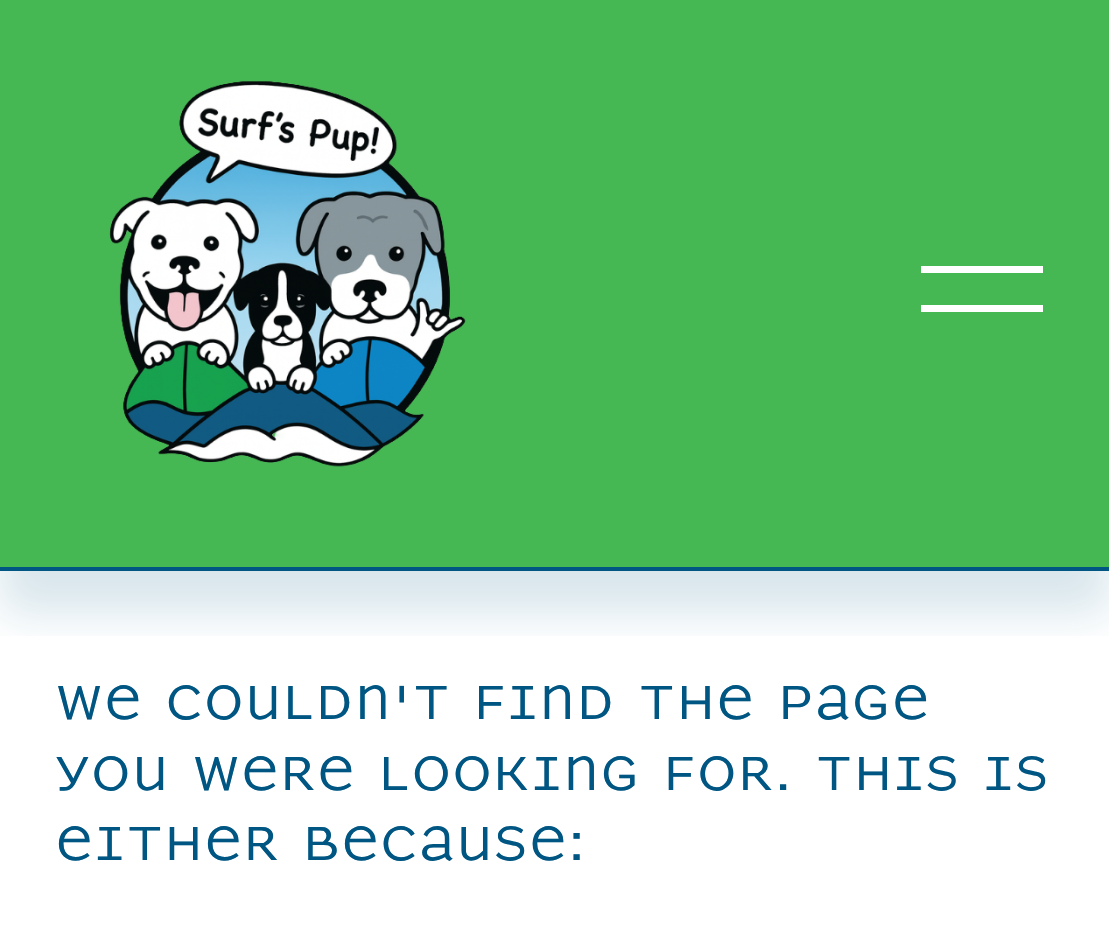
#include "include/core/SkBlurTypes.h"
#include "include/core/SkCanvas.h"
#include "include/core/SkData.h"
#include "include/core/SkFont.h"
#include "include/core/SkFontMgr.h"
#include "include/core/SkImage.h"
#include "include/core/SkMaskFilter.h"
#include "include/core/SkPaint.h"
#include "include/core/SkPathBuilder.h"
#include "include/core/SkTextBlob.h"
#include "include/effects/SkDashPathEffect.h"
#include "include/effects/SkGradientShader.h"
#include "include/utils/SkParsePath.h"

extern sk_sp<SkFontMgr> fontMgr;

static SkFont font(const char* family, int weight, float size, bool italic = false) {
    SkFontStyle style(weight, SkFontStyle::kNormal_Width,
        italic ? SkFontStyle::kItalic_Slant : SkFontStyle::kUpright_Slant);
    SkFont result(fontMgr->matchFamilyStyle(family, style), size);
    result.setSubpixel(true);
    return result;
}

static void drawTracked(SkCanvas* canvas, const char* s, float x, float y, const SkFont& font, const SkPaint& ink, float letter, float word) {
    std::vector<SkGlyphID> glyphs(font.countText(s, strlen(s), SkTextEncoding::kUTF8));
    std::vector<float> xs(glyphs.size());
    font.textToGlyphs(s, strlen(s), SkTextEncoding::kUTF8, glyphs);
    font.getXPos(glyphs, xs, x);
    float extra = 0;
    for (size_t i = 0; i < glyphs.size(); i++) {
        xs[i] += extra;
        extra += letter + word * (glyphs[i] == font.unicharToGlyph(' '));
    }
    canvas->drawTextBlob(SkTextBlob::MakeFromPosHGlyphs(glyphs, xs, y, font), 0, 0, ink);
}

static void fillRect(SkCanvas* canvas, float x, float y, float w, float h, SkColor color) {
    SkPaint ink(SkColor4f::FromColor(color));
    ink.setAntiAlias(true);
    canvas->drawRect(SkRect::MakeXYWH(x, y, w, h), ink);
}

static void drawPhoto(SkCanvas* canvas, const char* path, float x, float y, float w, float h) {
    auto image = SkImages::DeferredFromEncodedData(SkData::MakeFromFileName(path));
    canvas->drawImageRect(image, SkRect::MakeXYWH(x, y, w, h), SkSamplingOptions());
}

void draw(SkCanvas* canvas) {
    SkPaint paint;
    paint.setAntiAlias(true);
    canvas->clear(0xFFFFFFFF);
    fillRect(canvas, 0, 0, 1109, 567, 0xFF45B753);
    canvas->save();
    canvas->clipRect(SkRect::MakeXYWH(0, 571, 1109, 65));
    paint.setColor(0x26005682);
    paint.setMaskFilter(SkMaskFilter::MakeBlur(kNormal_SkBlurStyle, 21));
    canvas->drawRect(SkRect::MakeXYWH(0, 42, 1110, 571), paint);
    paint.setMaskFilter(nullptr);
    canvas->restore();
    drawPhoto(canvas, "assets/img1.png", 109, 81, 357, 386);
    fillRect(canvas, 921, 266, 122, 7, 0xFFFFFFFF);
    fillRect(canvas, 921, 305, 122, 7, 0xFFFFFFFF);
    fillRect(canvas, 0, 567, 1109, 4, 0xFF005682);
    SkFont font1 = font("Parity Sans", 400, 58.7f);
    paint.setColor(0xFF005682);
    drawTracked(canvas, "We couldn't find the page", 55, 719, font1, paint, 0.6f, 0);
    drawTracked(canvas, "you were looking for. This is", 55, 790, font1, paint, 0.6f, 0);
    drawTracked(canvas, "either because:", 55, 860, font1, paint, 0.6f, 0);
}
